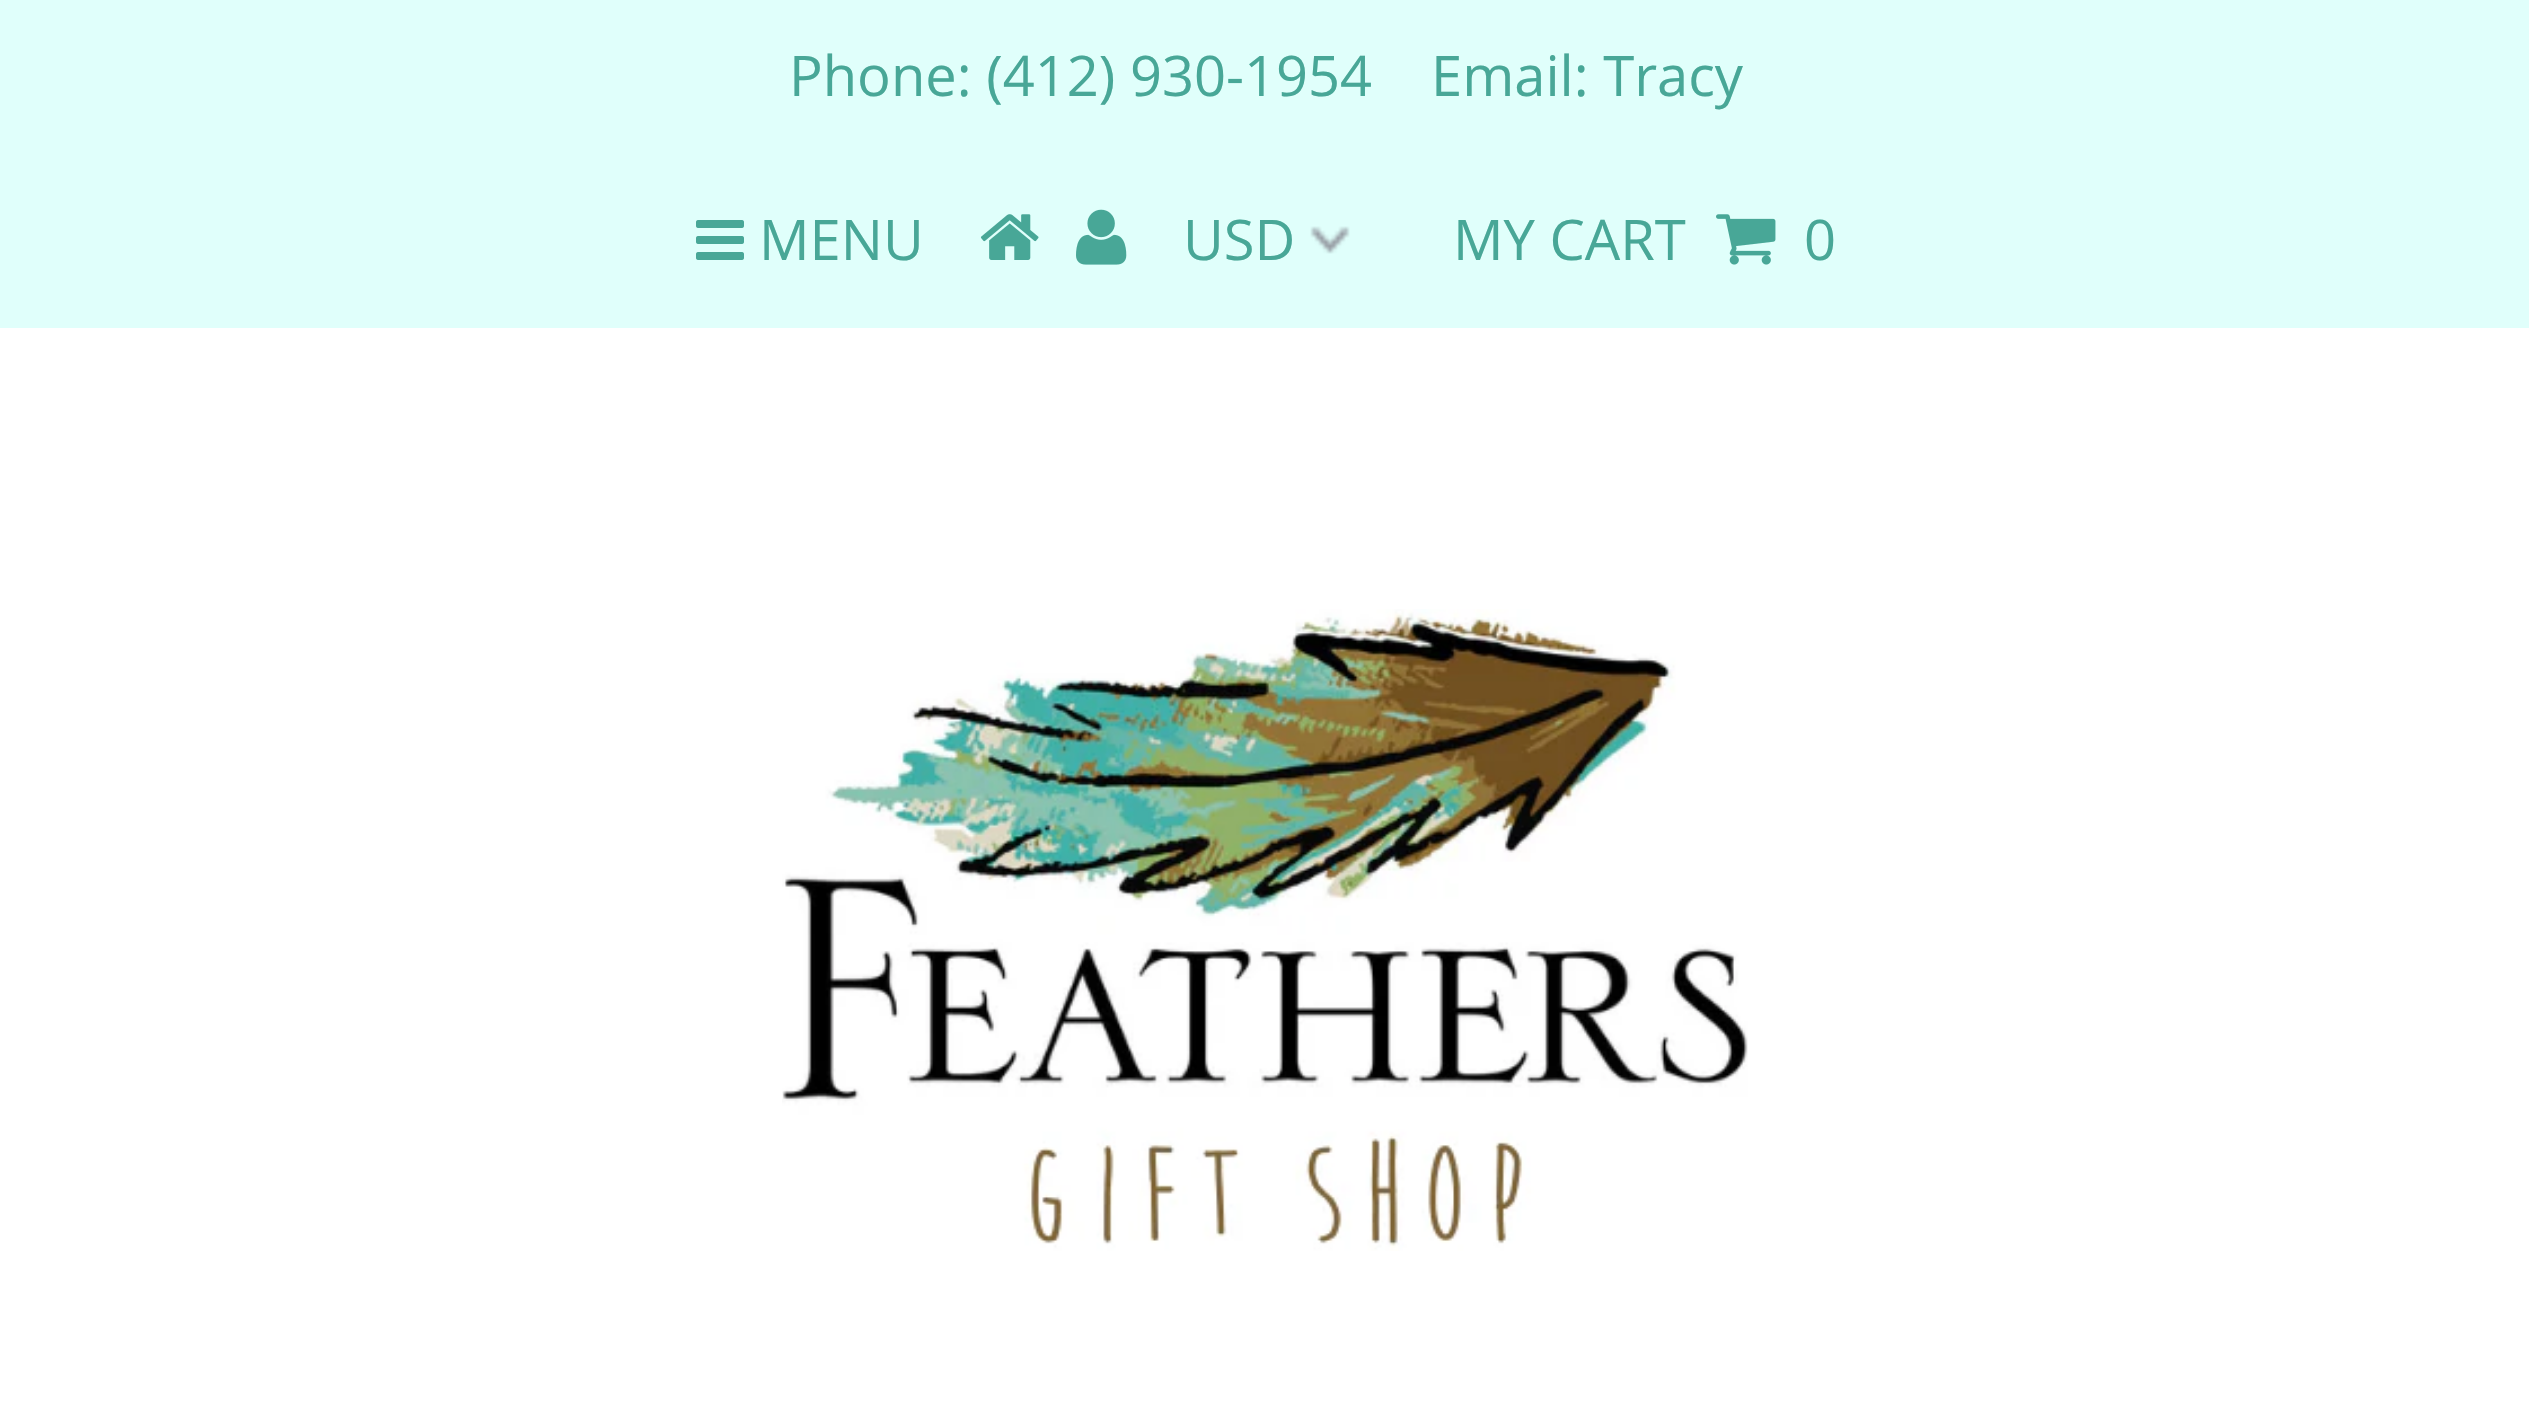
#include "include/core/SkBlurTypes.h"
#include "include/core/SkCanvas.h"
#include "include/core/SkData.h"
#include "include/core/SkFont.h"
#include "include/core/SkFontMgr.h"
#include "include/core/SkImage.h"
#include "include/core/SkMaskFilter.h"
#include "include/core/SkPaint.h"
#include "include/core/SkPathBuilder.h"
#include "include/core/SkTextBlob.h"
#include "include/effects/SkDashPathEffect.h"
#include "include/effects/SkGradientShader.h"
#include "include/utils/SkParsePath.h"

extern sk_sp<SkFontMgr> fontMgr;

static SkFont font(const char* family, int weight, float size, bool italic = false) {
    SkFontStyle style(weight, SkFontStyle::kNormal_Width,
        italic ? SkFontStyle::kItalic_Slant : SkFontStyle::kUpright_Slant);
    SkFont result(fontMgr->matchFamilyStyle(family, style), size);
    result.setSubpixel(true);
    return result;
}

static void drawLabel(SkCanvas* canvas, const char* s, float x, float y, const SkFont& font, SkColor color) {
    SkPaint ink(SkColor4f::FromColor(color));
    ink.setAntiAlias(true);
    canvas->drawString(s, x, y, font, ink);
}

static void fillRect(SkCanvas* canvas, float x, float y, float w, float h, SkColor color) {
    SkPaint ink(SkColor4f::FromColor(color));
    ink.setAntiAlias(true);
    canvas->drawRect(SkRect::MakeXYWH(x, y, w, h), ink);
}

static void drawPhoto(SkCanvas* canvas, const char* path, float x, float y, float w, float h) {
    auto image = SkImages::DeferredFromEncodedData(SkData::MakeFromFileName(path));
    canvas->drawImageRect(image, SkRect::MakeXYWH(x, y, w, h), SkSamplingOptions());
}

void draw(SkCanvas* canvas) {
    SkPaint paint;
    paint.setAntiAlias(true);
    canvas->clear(0xFFFFFFFF);
    fillRect(canvas, 0, 0, 2529, 328, 0xFFE0FFFB);
    SkFont font1 = font("Open Sans", 400, 56);
    drawLabel(canvas, "Phone: (412) 930-1954", 789, 96, font1, 0xFF48A797);
    drawLabel(canvas, "Email: Tracy", 1431, 96, font1, 0xFF48A797);
    drawPhoto(canvas, "assets/img1.png", 696, 220, 48, 40);
    drawLabel(canvas, "MENU", 759, 260, font1, 0xFF48A797);
    drawPhoto(canvas, "assets/img2.png", 980, 214, 59, 46);
    drawPhoto(canvas, "assets/img3.png", 1076, 209, 51, 56);
    drawPhoto(canvas, "assets/img4.png", 1310, 226, 40, 28);
    drawLabel(canvas, "USD", 1183, 260, font1, 0xFF48A797);
    drawLabel(canvas, "MY CART", 1453, 260, font1, 0xFF48A797);
    drawPhoto(canvas, "assets/img5.png", 1716, 214, 60, 51);
    drawLabel(canvas, "0", 1804, 260, font1, 0xFF48A797);
    drawPhoto(canvas, "assets/img6.png", 782, 609, 966, 642);
}
